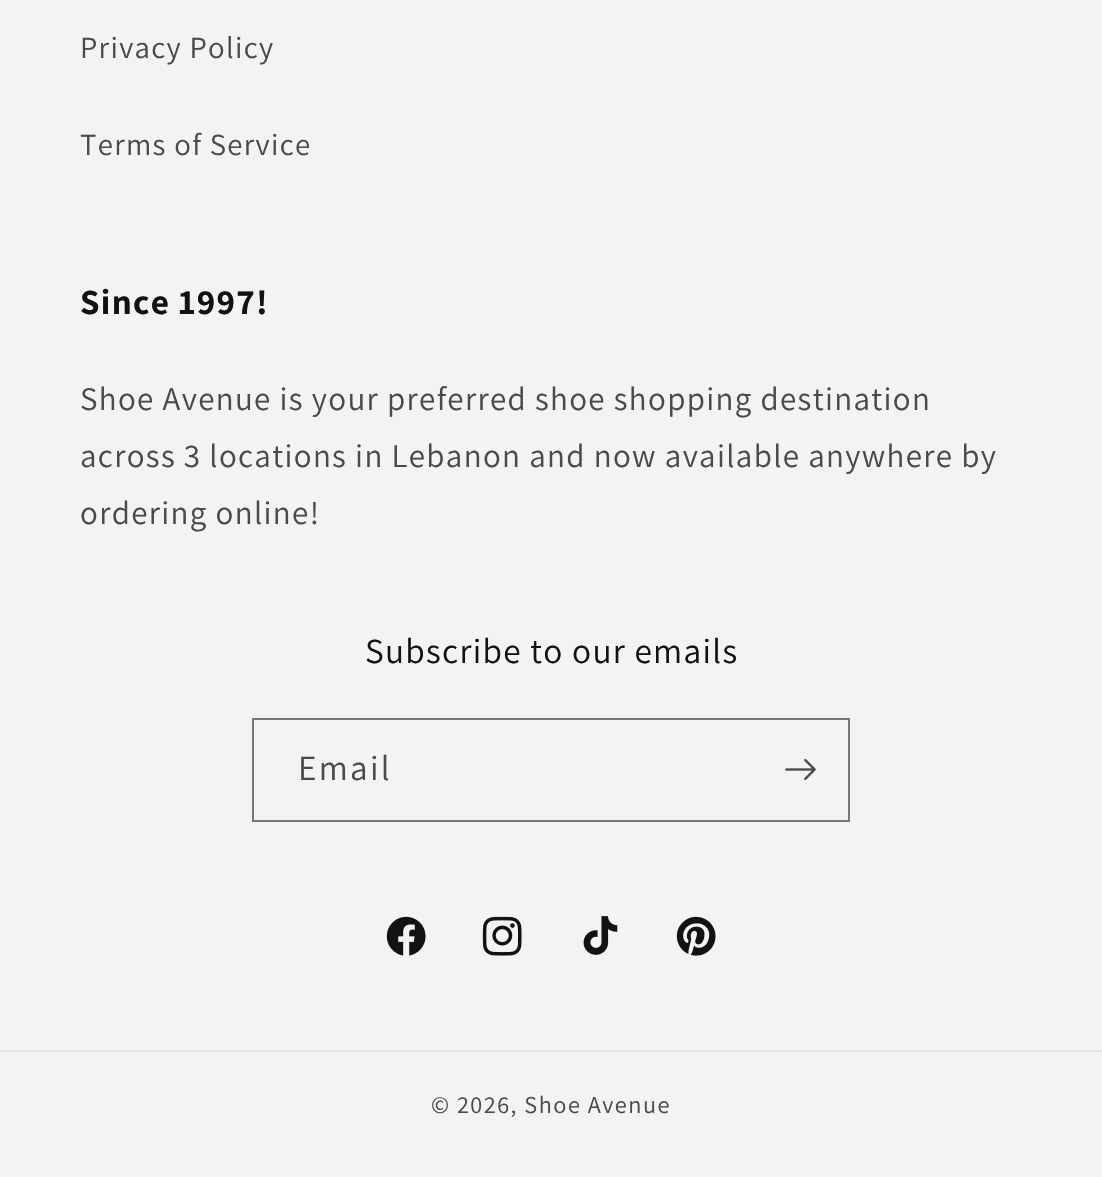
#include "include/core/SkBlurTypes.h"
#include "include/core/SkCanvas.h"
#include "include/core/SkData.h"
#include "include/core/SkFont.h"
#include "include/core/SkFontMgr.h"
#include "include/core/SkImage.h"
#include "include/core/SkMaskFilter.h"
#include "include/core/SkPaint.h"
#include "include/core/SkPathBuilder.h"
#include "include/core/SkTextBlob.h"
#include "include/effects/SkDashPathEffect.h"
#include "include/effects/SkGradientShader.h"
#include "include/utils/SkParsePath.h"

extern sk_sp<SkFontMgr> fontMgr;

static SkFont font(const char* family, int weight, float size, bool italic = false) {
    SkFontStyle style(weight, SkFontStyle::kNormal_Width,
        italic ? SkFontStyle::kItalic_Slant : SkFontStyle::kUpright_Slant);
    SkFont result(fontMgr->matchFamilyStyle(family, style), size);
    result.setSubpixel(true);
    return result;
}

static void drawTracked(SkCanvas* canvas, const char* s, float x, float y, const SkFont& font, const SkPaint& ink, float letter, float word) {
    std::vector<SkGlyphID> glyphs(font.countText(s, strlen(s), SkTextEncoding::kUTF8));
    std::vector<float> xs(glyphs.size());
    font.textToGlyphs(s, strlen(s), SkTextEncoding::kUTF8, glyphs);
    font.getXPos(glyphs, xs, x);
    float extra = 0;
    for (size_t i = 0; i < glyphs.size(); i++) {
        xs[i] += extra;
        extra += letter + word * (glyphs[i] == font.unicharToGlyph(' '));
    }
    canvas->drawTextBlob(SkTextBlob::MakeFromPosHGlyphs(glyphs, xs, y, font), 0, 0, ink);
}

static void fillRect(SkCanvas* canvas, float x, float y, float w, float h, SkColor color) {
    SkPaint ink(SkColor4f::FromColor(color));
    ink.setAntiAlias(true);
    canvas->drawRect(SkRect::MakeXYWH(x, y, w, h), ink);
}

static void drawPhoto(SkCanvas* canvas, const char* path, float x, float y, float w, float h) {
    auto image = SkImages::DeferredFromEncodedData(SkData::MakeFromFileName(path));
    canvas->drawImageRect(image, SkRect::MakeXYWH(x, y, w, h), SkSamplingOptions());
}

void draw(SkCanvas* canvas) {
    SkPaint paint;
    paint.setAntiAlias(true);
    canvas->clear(0xFFF3F3F3);
    SkFont font1 = font("Assistant", 400, 30.75f);
    paint.setColor(0xFF4A4A4A);
    drawTracked(canvas, "Privacy Policy", 80, 58, font1, paint, 1.32f, 0);
    drawTracked(canvas, "Terms of Service", 80, 155, font1, paint, 1.32f, 0);
    SkFont font2 = font("Assistant", 700, 35.25f);
    paint.setColor(0xFF121212);
    drawTracked(canvas, "Since 1997!", 80, 314, font2, paint, 1.32f, 0);
    SkFont font3 = font("Assistant", 400, 33);
    paint.setColor(0xFF4A4A4A);
    drawTracked(canvas, "Shoe Avenue is your preferred shoe shopping destination", 80, 410, font3, paint, 1.32f, 0);
    drawTracked(canvas, "across 3 locations in Lebanon and now available anywhere by", 80, 467, font3, paint, 1.32f, 0);
    drawTracked(canvas, "ordering online!", 80, 524, font3, paint, 1.32f, 0);
    SkFont font4 = font("Assistant", 400, 35.25f);
    paint.setColor(0xFF121212);
    drawTracked(canvas, "Subscribe to our emails", 365, 663, font4, paint, 1.32f, 0);
    paint.setStroke(true);
    paint.setStrokeWidth(2);
    paint.setColor(0xFF777777);
    canvas->drawRect(SkRect::MakeXYWH(253, 719, 596, 102), paint);
    paint.setStroke(false);
    paint.setColor(0xFF4A4A4A);
    drawTracked(canvas, "Email", 298, 780, font4, paint, 2.25f, 0);
    drawPhoto(canvas, "assets/img1.png", 785, 758, 31, 23);
    drawPhoto(canvas, "assets/img2.png", 386, 916, 40, 40);
    drawPhoto(canvas, "assets/img3.png", 482, 916, 40, 40);
    drawPhoto(canvas, "assets/img4.png", 583, 916, 35, 39);
    drawPhoto(canvas, "assets/img5.png", 676, 916, 40, 40);
    fillRect(canvas, 0, 1050, 1102, 2, 0xFFE1E1E1);
    SkFont font5 = font("Assistant", 400, 24.25f);
    drawTracked(canvas, "© 2026, Shoe Avenue", 431, 1113, font5, paint, 1.5f, 0);
}
